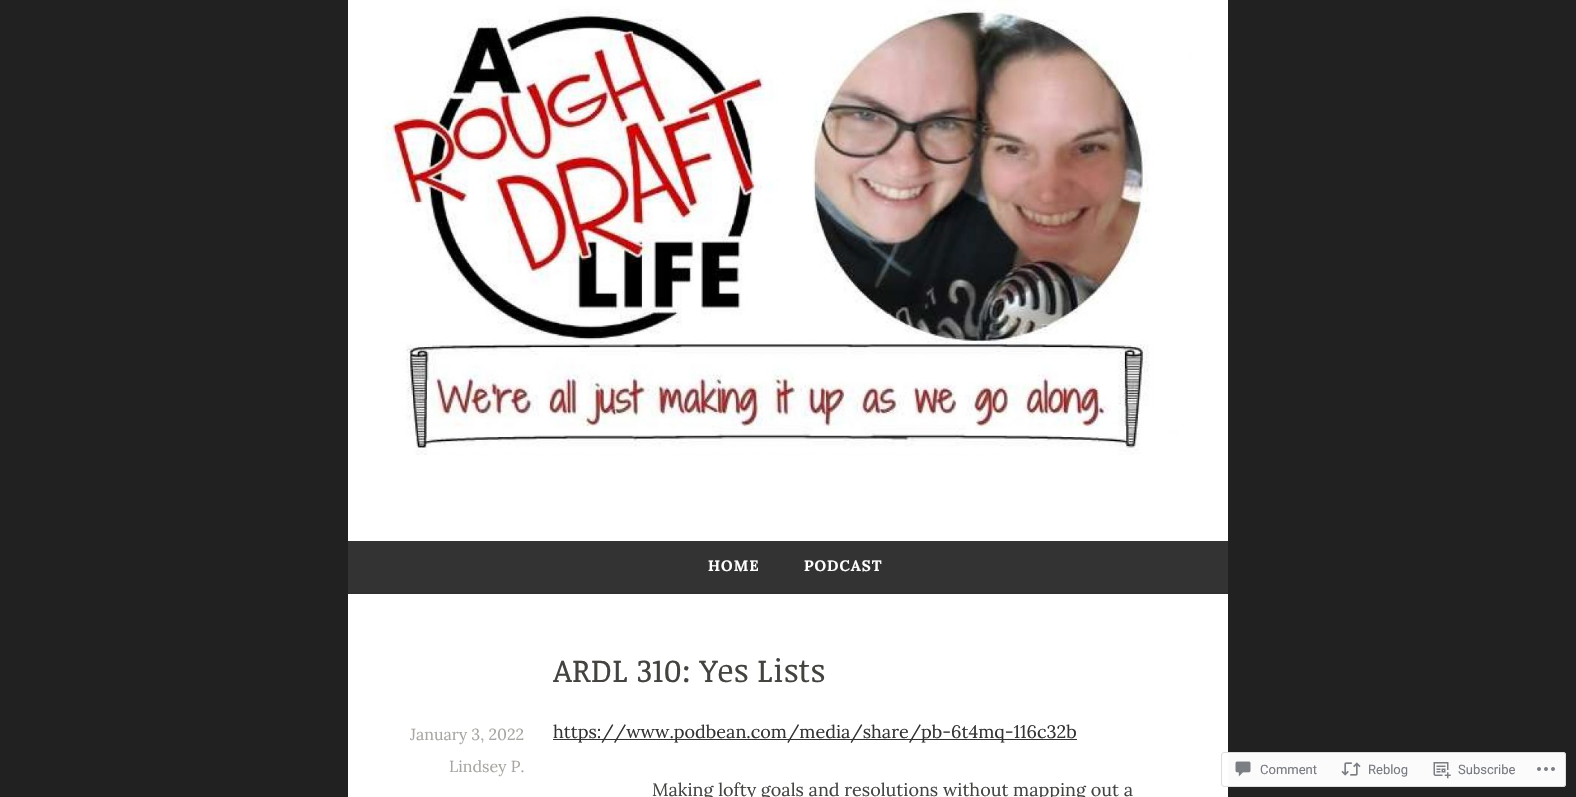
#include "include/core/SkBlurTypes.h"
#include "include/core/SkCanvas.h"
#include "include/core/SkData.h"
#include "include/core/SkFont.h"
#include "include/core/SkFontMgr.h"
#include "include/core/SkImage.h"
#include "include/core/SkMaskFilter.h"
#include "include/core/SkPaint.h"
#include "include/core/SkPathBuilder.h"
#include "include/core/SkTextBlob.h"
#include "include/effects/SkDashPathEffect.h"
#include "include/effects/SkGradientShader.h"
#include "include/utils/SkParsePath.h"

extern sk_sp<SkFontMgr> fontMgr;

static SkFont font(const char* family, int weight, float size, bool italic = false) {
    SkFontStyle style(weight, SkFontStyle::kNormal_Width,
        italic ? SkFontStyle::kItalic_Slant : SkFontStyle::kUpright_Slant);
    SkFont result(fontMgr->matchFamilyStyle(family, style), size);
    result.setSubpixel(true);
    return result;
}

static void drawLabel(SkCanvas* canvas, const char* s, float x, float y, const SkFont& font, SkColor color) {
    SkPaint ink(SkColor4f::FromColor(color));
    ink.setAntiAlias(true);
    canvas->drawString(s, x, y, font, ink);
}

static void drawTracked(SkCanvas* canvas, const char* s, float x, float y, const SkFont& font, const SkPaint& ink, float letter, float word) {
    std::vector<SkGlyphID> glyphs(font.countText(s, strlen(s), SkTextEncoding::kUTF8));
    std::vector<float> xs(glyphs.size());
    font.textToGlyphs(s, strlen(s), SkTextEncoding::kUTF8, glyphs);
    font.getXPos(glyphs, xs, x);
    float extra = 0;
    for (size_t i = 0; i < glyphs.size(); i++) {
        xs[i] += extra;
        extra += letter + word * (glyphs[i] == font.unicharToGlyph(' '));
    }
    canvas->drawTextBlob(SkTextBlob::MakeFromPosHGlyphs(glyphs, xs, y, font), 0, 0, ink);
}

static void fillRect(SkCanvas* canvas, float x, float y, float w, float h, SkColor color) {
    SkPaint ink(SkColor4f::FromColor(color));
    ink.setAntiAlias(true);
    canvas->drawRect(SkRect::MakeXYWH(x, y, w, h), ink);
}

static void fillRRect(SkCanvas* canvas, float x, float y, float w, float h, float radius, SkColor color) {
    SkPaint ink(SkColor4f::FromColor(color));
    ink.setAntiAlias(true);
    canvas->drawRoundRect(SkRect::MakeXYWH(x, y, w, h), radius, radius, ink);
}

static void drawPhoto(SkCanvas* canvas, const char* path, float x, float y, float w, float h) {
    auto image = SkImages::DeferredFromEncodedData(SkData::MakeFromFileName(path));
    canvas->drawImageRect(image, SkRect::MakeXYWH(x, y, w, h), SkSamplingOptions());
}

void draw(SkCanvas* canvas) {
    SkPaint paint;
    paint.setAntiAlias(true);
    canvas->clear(0xFF212121);
    drawPhoto(canvas, "assets/img1.png", 348, 0, 880, 455);
    fillRect(canvas, 348, 455, 880, 86, 0xFFFFFFFF);
    fillRect(canvas, 348, 541, 880, 51, 0xFF333333);
    fillRect(canvas, 348, 592, 880, 2, 0xFF313131);
    SkFont font1 = font("Lora", 700, 15);
    paint.setColor(0xFFFFFFFF);
    drawTracked(canvas, "HOME", 708, 571, font1, paint, 1, 0);
    drawTracked(canvas, "PODCAST", 804, 571, font1, paint, 1, 0);
    fillRect(canvas, 348, 594, 880, 203, 0xFFFFFFFF);
    SkFont font2 = font("Noticia Text", 400, 32);
    drawLabel(canvas, "ARDL 310: Yes Lists", 553, 682, font2, 0xFF444340);
    SkFont font3 = font("Lora", 400, 16);
    drawLabel(canvas, "January 3, 2022", 410, 740, font3, 0xFFA8A6A1);
    drawLabel(canvas, "Lindsey P.", 449, 772, font3, 0xFFA8A6A1);
    fillRect(canvas, 553, 739, 524, 1, 0xFF333333);
    SkFont font4 = font("Lora", 400, 18);
    drawLabel(canvas, "https://www.podbean.com/media/share/pb-6t4mq-116c32b", 553, 738, font4, 0xFF333333);
    drawLabel(canvas, "Making lofty goals and resolutions without mapping out a", 652, 796, font4, 0xFF444340);
    fillRRect(canvas, 1221, 752, 345, 35, 3, 0xFAFFFFFF);
    paint.setStroke(true);
    paint.setStrokeWidth(1);
    paint.setColor(0xFADCDCDE);
    canvas->drawRoundRect(SkRect::MakeXYWH(1221.5f, 752.5f, 344, 34), 2.5f, 2.5f, paint);
    drawPhoto(canvas, "assets/img2.png", 1235, 761, 16, 16);
    SkFont font5 = font("Roboto", 400, 13);
    drawLabel(canvas, "Comment", 1260, 774, font5, 0xFF767A80);
    drawPhoto(canvas, "assets/img3.png", 1341, 762, 20, 14);
    drawLabel(canvas, "Reblog", 1368, 774, font5, 0xFF767A80);
    drawPhoto(canvas, "assets/img4.png", 1433, 762, 18, 17);
    drawLabel(canvas, "Subscribe", 1458, 774, font5, 0xFF767A80);
    drawPhoto(canvas, "assets/img5.png", 1537, 767, 18, 4);
}
